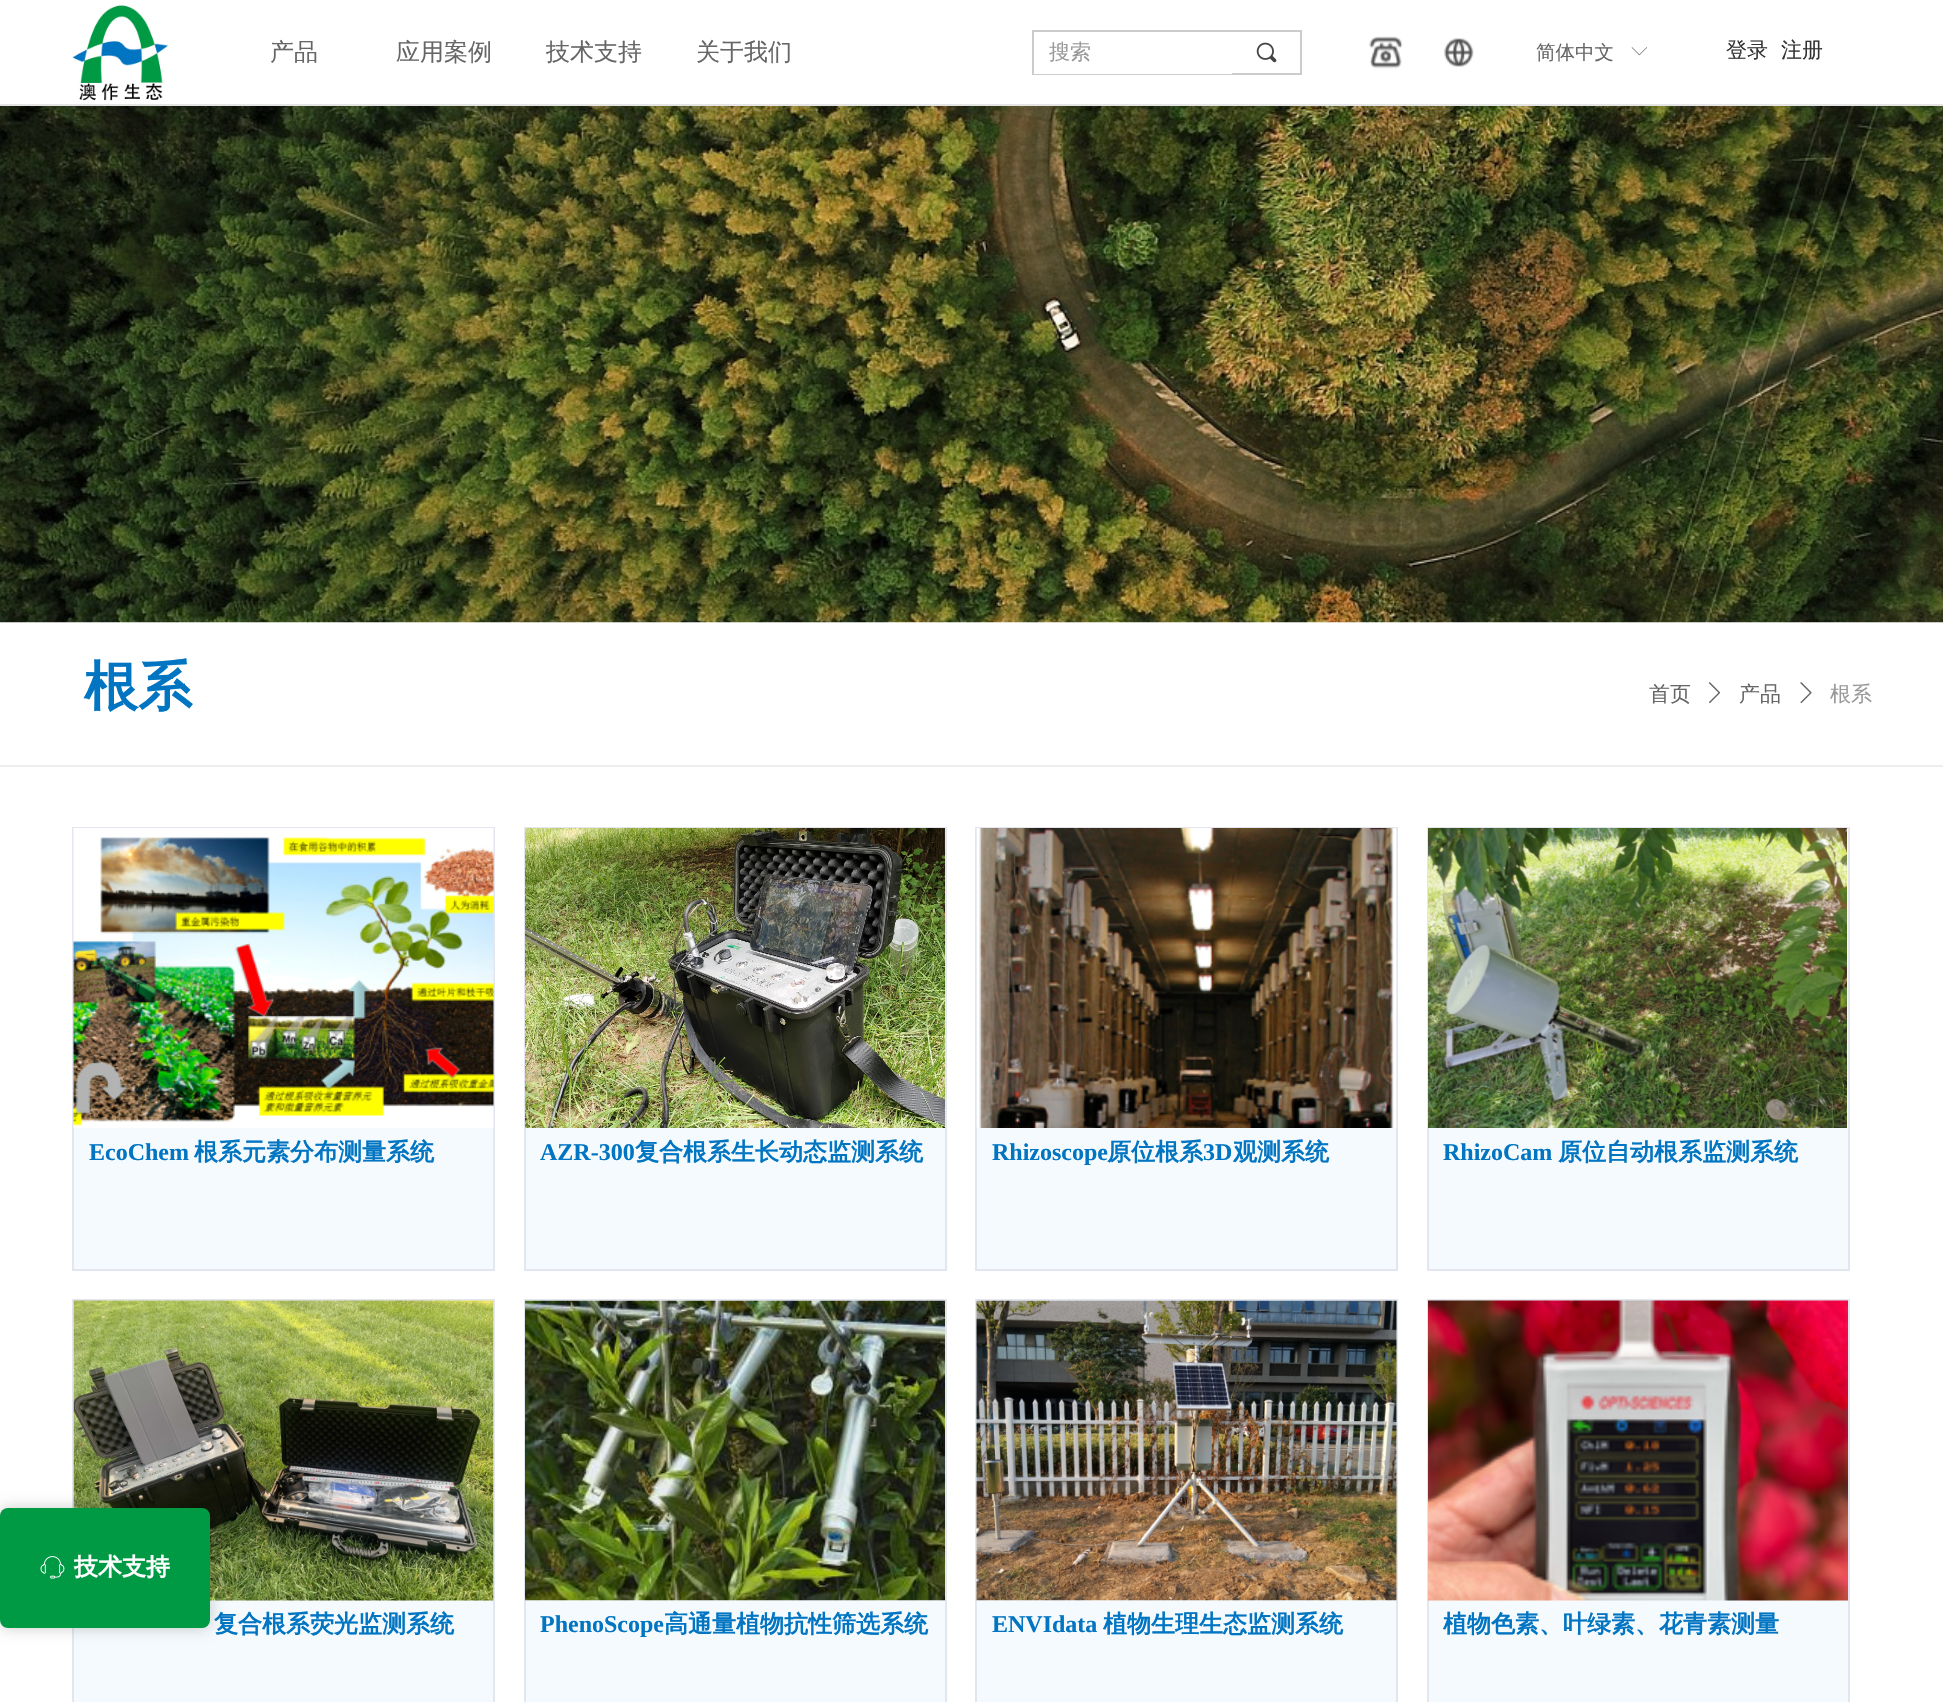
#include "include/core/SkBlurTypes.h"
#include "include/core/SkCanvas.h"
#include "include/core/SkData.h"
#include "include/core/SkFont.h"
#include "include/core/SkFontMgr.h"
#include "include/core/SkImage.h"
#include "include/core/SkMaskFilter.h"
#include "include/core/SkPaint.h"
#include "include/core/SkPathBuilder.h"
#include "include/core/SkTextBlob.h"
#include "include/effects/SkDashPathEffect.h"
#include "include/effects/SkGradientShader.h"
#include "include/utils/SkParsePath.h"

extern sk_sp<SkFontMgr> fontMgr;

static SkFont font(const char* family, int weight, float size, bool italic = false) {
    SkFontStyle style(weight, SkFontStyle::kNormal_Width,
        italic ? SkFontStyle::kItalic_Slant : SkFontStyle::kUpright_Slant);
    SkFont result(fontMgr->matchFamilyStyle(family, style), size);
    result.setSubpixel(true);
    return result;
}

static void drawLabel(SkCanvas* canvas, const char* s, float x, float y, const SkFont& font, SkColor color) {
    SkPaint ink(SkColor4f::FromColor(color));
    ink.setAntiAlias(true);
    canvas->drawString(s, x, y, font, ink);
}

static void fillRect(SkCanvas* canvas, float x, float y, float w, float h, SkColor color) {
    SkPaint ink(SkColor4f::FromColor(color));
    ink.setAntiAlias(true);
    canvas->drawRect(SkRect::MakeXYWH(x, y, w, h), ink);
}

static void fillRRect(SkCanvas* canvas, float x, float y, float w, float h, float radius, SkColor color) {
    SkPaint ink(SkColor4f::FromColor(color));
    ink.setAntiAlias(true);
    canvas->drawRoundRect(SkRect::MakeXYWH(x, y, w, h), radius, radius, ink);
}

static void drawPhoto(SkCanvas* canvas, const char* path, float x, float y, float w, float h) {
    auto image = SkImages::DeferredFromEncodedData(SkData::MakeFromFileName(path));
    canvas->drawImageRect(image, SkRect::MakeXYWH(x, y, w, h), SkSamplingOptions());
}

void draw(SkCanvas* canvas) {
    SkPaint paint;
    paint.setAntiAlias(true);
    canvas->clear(0xFFFFFFFF);
    drawPhoto(canvas, "assets/img1.png", 72, 5, 96, 96);
    SkFont font1 = font("WenQuanYi Zen Hei", 500, 24);
    drawLabel(canvas, "产品", 270, 60, font1, 0xFF666666);
    drawLabel(canvas, "应用案例", 396, 60, font1, 0xFF666666);
    drawLabel(canvas, "技术支持", 546, 60, font1, 0xFF666666);
    drawLabel(canvas, "关于我们", 696, 60, font1, 0xFF666666);
    paint.setStroke(true);
    paint.setStrokeWidth(2);
    paint.setColor(0xFFCCCCCC);
    canvas->drawRect(SkRect::MakeXYWH(1033, 31, 268, 43), paint);
    fillRect(canvas, 1034, 73, 198, 1, 0xFFFFFFFF);
    SkFont font2 = font("WenQuanYi Zen Hei", 500, 21);
    drawLabel(canvas, "搜索", 1049, 59, font2, 0xFF999999);
    drawPhoto(canvas, "assets/img2.png", 1256, 42, 21, 21);
    drawPhoto(canvas, "assets/img3.png", 1369, 36, 34, 33);
    drawPhoto(canvas, "assets/img4.png", 1444, 38, 30, 29);
    SkFont font3 = font("WenQuanYi Zen Hei", 500, 19.5f);
    drawLabel(canvas, "简体中文", 1536, 59, font3, 0xFF666666);
    drawPhoto(canvas, "assets/img5.png", 1631, 47, 16, 9);
    drawLabel(canvas, "登录", 1726, 57, font2, 0xFF333333);
    drawLabel(canvas, "注册", 1781, 57, font2, 0xFF333333);
    fillRect(canvas, 0, 104, 1943, 2, 0xFFE4E4E4);
    drawPhoto(canvas, "assets/img6.png", 0, 106, 1943, 517);
    SkFont font4 = font("WenQuanYi Zen Hei", 700, 54);
    drawLabel(canvas, "根系", 84, 705, font4, 0xFF0175C2);
    drawLabel(canvas, "首页", 1649, 701, font2, 0xFF666666);
    drawPhoto(canvas, "assets/img7.png", 1708, 682, 12, 22);
    drawLabel(canvas, "产品", 1739, 701, font2, 0xFF666666);
    drawPhoto(canvas, "assets/img8.png", 1800, 682, 12, 22);
    drawLabel(canvas, "根系", 1830, 701, font2, 0xFF999999);
    fillRect(canvas, 0, 765, 1943, 2, 0xFFEEEEEE);
    fillRect(canvas, 74, 1128, 419, 141, 0xFFF4FAFD);
    paint.setColor(0xFFE3E6EF);
    canvas->drawRect(SkRect::MakeXYWH(73, 828, 421, 442), paint);
    drawPhoto(canvas, "assets/img9.png", 73, 828, 421, 300);
    SkFont font5 = font("Liberation Serif", 700, 24);
    drawLabel(canvas, "EcoChem", 89, 1160, font5, 0xFF0175C2);
    SkFont font6 = font("WenQuanYi Zen Hei", 700, 24);
    drawLabel(canvas, "根系元素分布测量系统", 194, 1160, font6, 0xFF0175C2);
    fillRect(canvas, 526, 1128, 419, 141, 0xFFF4FAFD);
    canvas->drawRect(SkRect::MakeXYWH(525, 828, 421, 442), paint);
    drawPhoto(canvas, "assets/img10.png", 525, 828, 420, 300);
    drawLabel(canvas, "AZR-300", 540, 1160, font5, 0xFF0175C2);
    drawLabel(canvas, "复合根系生长动态监测系统", 635, 1160, font6, 0xFF0175C2);
    fillRect(canvas, 977, 1128, 419, 141, 0xFFF4FAFD);
    canvas->drawRect(SkRect::MakeXYWH(976, 828, 421, 442), paint);
    drawPhoto(canvas, "assets/img11.png", 976, 828, 421, 300);
    drawLabel(canvas, "Rhizoscope", 992, 1160, font5, 0xFF0175C2);
    drawLabel(canvas, "原位根系", 1107, 1160, font6, 0xFF0175C2);
    drawLabel(canvas, "3D", 1203, 1160, font5, 0xFF0175C2);
    drawLabel(canvas, "观测系统", 1233, 1160, font6, 0xFF0175C2);
    paint.setStroke(false);
    paint.setColor(0xFFF4FAFD);
    canvas->drawRect(SkRect::MakeXYWH(1428, 828, 421, 442), paint);
    paint.setStroke(true);
    paint.setColor(0xFFE3E6EF);
    canvas->drawRect(SkRect::MakeXYWH(1428, 828, 421, 442), paint);
    drawPhoto(canvas, "assets/img12.png", 1428, 828, 419, 300);
    drawLabel(canvas, "RhizoCam", 1443, 1160, font5, 0xFF0175C2);
    drawLabel(canvas, "原位自动根系监测系统", 1558, 1160, font6, 0xFF0175C2);
    fillRect(canvas, 74, 1600, 419, 102, 0xFFF4FAFD);
    canvas->drawRect(SkRect::MakeXYWH(73, 1300, 421, 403), paint);
    drawPhoto(canvas, "assets/img13.png", 73, 1300, 421, 301);
    drawLabel(canvas, "复合根系荧光监测系统", 214, 1632, font6, 0xFF0175C2);
    fillRect(canvas, 526, 1600, 419, 102, 0xFFF4FAFD);
    canvas->drawRect(SkRect::MakeXYWH(525, 1300, 421, 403), paint);
    drawPhoto(canvas, "assets/img14.png", 525, 1300, 420, 301);
    drawLabel(canvas, "PhenoScope", 540, 1632, font5, 0xFF0175C2);
    drawLabel(canvas, "高通量植物抗性筛选系统", 664, 1632, font6, 0xFF0175C2);
    fillRect(canvas, 977, 1600, 419, 102, 0xFFF4FAFD);
    canvas->drawRect(SkRect::MakeXYWH(976, 1300, 421, 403), paint);
    drawPhoto(canvas, "assets/img15.png", 976, 1300, 421, 301);
    drawLabel(canvas, "ENVIdata", 992, 1632, font5, 0xFF0175C2);
    drawLabel(canvas, "植物生理生态监测系统", 1103, 1632, font6, 0xFF0175C2);
    fillRect(canvas, 1429, 1600, 419, 102, 0xFFF4FAFD);
    canvas->drawRect(SkRect::MakeXYWH(1428, 1300, 421, 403), paint);
    drawPhoto(canvas, "assets/img16.png", 1428, 1300, 420, 301);
    drawLabel(canvas, "植物色素、叶绿素、花青素测量", 1443, 1632, font6, 0xFF0175C2);
    paint.setStroke(false);
    paint.setColor(0x33000000);
    paint.setMaskFilter(SkMaskFilter::MakeBlur(kNormal_SkBlurStyle, 7.5f));
    canvas->drawRoundRect(SkRect::MakeXYWH(0, 1508, 210, 120), 8, 8, paint);
    paint.setMaskFilter(nullptr);
    fillRRect(canvas, 0, 1508, 210, 120, 8, 0xFF009A44);
    drawPhoto(canvas, "assets/img17.png", 40, 1556, 25, 23);
    drawLabel(canvas, "技术支持", 74, 1575, font6, 0xFFFFFFFF);
}
